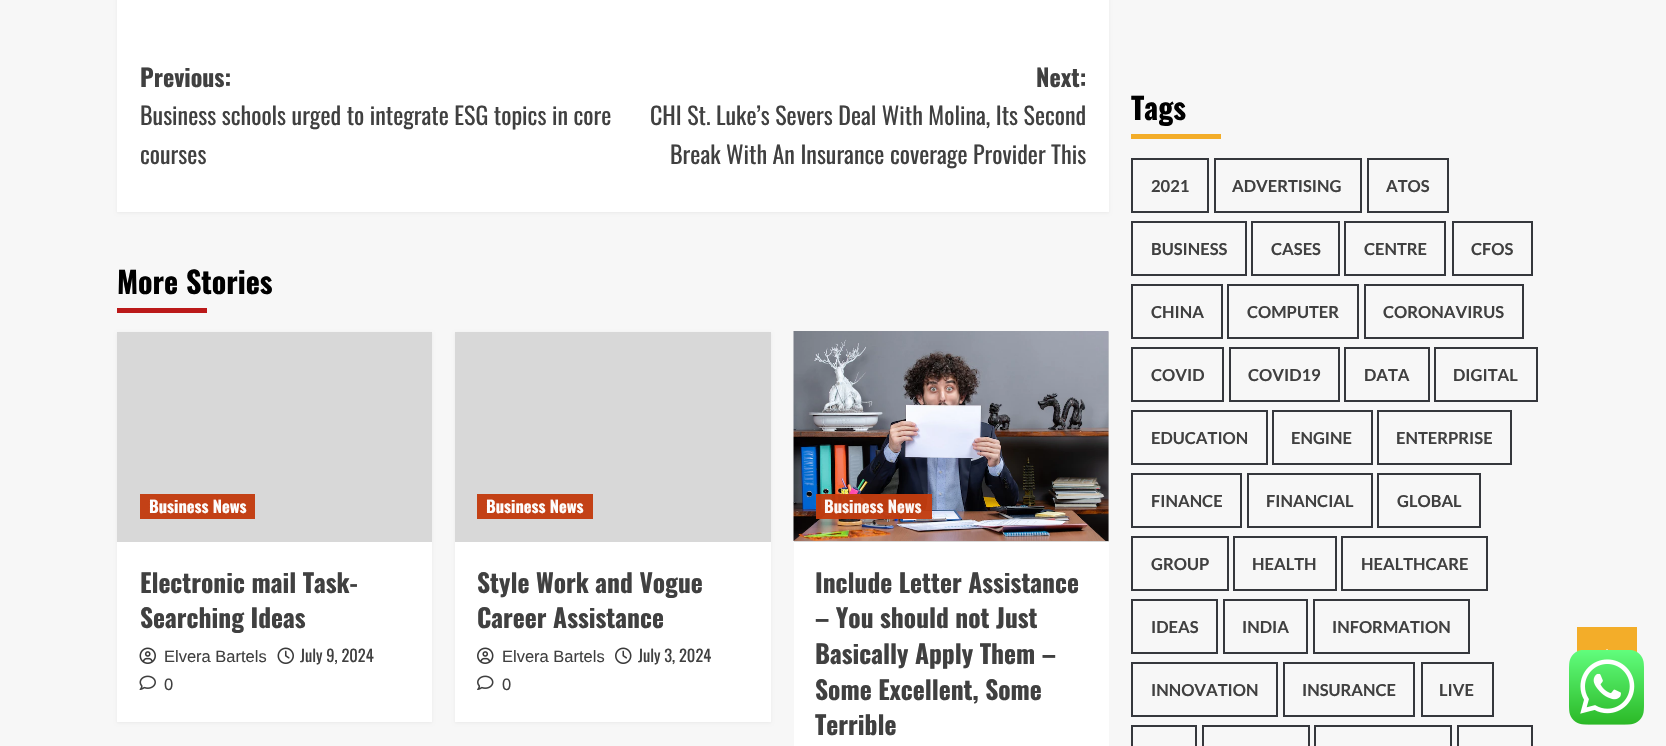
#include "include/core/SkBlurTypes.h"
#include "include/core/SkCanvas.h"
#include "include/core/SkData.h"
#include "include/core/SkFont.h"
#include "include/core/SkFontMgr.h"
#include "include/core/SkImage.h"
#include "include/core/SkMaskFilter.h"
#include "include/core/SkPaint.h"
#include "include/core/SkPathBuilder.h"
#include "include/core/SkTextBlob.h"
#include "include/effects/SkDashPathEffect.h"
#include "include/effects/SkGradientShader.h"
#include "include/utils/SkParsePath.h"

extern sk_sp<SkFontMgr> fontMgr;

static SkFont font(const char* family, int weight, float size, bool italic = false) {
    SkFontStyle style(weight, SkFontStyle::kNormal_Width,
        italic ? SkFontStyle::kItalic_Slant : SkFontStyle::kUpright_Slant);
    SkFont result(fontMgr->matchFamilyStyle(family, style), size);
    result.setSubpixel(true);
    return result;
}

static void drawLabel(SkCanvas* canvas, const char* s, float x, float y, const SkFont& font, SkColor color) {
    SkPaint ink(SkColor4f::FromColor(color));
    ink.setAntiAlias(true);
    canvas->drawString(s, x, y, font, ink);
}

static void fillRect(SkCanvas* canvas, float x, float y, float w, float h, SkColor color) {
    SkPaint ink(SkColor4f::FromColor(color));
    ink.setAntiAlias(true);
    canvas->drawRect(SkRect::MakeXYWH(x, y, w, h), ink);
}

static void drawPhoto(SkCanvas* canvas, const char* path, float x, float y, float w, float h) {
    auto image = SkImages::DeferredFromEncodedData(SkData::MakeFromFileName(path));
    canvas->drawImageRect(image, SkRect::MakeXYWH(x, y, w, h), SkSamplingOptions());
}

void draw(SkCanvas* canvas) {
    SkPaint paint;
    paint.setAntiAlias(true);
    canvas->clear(0xFFF7F7F7);
    paint.setColor(0x0D000000);
    paint.setMaskFilter(SkMaskFilter::MakeBlur(kNormal_SkBlurStyle, 1.5f));
    canvas->drawRect(SkRect::MakeXYWH(117, -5, 992, 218), paint);
    paint.setMaskFilter(nullptr);
    fillRect(canvas, 117, 0, 992, 212, 0xFFFFFFFF);
    SkFont font1 = font("Oswald", 700, 24);
    drawLabel(canvas, "Previous:", 140, 87, font1, 0xFF404040);
    SkFont font2 = font("Oswald", 400, 24);
    drawLabel(canvas, "Business schools urged to integrate ESG topics in core", 140, 125, font2, 0xFF404040);
    drawLabel(canvas, "courses", 140, 164, font2, 0xFF404040);
    drawLabel(canvas, "Next:", 1036, 87, font1, 0xFF404040);
    drawLabel(canvas, "CHI St. Luke’s Severs Deal With Molina, Its Second", 650, 125, font2, 0xFF404040);
    drawLabel(canvas, "Break With An Insurance coverage Provider This", 670, 164, font2, 0xFF404040);
    SkFont font3 = font("Oswald", 700, 30);
    drawLabel(canvas, "More Stories", 117, 294, font3, 0xFF000000);
    fillRect(canvas, 117, 308, 90, 5, 0xFFBB1919);
    paint.setMaskFilter(SkMaskFilter::MakeBlur(kNormal_SkBlurStyle, 1.5f));
    canvas->drawRect(SkRect::MakeXYWH(117, 333, 315, 390), paint);
    paint.setMaskFilter(nullptr);
    fillRect(canvas, 117, 542, 315, 180, 0xFFFFFFFF);
    fillRect(canvas, 117, 332, 315, 210, 0xFFD8D8D8);
    fillRect(canvas, 140, 494, 115, 25, 0xFFC34116);
    SkFont font4 = font("Oswald", 700, 16.5f);
    drawLabel(canvas, "Business News", 149, 513, font4, 0xFFFDFDFD);
    SkFont font5 = font("Oswald", 700, 25.5f);
    drawLabel(canvas, "Electronic mail Task-", 140, 593, font5, 0xFF404040);
    drawLabel(canvas, "Searching Ideas", 140, 628, font5, 0xFF404040);
    drawPhoto(canvas, "assets/img1.png", 139, 647, 17, 17);
    SkFont font6 = font("Liberation Sans", 400, 16.5f);
    drawLabel(canvas, "Elvera Bartels", 164, 662, font6, 0xFF404040);
    drawPhoto(canvas, "assets/img2.png", 277, 647, 17, 17);
    SkFont font7 = font("Oswald", 400, 16.5f);
    drawLabel(canvas, "July 9, 2024", 300, 662, font7, 0xFF404040);
    drawPhoto(canvas, "assets/img3.png", 139, 675, 17, 15);
    drawLabel(canvas, "0", 164, 690, font6, 0xFF404040);
    paint.setMaskFilter(SkMaskFilter::MakeBlur(kNormal_SkBlurStyle, 1.5f));
    canvas->drawRect(SkRect::MakeXYWH(455, 333, 316, 390), paint);
    paint.setMaskFilter(nullptr);
    fillRect(canvas, 455, 542, 316, 180, 0xFFFFFFFF);
    fillRect(canvas, 455, 332, 316, 210, 0xFFD8D8D8);
    fillRect(canvas, 477, 494, 116, 25, 0xFFC34116);
    drawLabel(canvas, "Business News", 486, 513, font4, 0xFFFDFDFD);
    drawLabel(canvas, "Style Work and Vogue", 477, 593, font5, 0xFF404040);
    drawLabel(canvas, "Career Assistance", 477, 628, font5, 0xFF404040);
    drawPhoto(canvas, "assets/img4.png", 477, 647, 17, 17);
    drawLabel(canvas, "Elvera Bartels", 502, 662, font6, 0xFF404040);
    drawPhoto(canvas, "assets/img5.png", 615, 647, 17, 17);
    drawLabel(canvas, "July 3, 2024", 638, 662, font7, 0xFF404040);
    drawPhoto(canvas, "assets/img6.png", 477, 675, 17, 15);
    drawLabel(canvas, "0", 502, 690, font6, 0xFF404040);
    fillRect(canvas, 794, 542, 315, 204, 0xFFFFFFFF);
    fillRect(canvas, 794, 332, 315, 210, 0xFFD8D8D8);
    drawPhoto(canvas, "assets/img7.png", 793, 331, 316, 210);
    fillRect(canvas, 816, 494, 116, 25, 0xF5C23B0E);
    drawLabel(canvas, "Business News", 824, 513, font4, 0xFFFCF7F5);
    drawLabel(canvas, "Include Letter Assistance", 815, 593, font5, 0xFF404040);
    drawLabel(canvas, "– You should not Just", 815, 628, font5, 0xFF404040);
    drawLabel(canvas, "Basically Apply Them –", 815, 664, font5, 0xFF404040);
    drawLabel(canvas, "Some Excellent, Some", 815, 700, font5, 0xFF404040);
    drawLabel(canvas, "Terrible", 815, 735, font5, 0xFF404040);
    drawLabel(canvas, "Tags", 1131, 120, font3, 0xFF000000);
    fillRect(canvas, 1131, 134, 90, 5, 0xFFF3AD29);
    paint.setStroke(true);
    paint.setStrokeWidth(2);
    paint.setColor(0xFF35373C);
    canvas->drawRect(SkRect::MakeXYWH(1132, 159, 76, 53), paint);
    SkFont font8 = font("Lato", 700, 16.5f);
    drawLabel(canvas, "2021", 1151, 192, font8, 0xFF404040);
    canvas->drawRect(SkRect::MakeXYWH(1215, 159, 146, 53), paint);
    drawLabel(canvas, "ADVERTISING", 1232, 192, font8, 0xFF404040);
    canvas->drawRect(SkRect::MakeXYWH(1368, 159, 80, 53), paint);
    drawLabel(canvas, "ATOS", 1386, 192, font8, 0xFF404040);
    canvas->drawRect(SkRect::MakeXYWH(1132, 222, 114, 53), paint);
    drawLabel(canvas, "BUSINESS", 1151, 255, font8, 0xFF404040);
    canvas->drawRect(SkRect::MakeXYWH(1252, 222, 87, 53), paint);
    drawLabel(canvas, "CASES", 1271, 255, font8, 0xFF404040);
    canvas->drawRect(SkRect::MakeXYWH(1345, 222, 100, 53), paint);
    drawLabel(canvas, "CENTRE", 1364, 255, font8, 0xFF404040);
    canvas->drawRect(SkRect::MakeXYWH(1453, 222, 79, 53), paint);
    drawLabel(canvas, "CFOS", 1471, 255, font8, 0xFF404040);
    canvas->drawRect(SkRect::MakeXYWH(1132, 285, 90, 53), paint);
    drawLabel(canvas, "CHINA", 1151, 318, font8, 0xFF404040);
    canvas->drawRect(SkRect::MakeXYWH(1228, 285, 130, 53), paint);
    drawLabel(canvas, "COMPUTER", 1247, 318, font8, 0xFF404040);
    canvas->drawRect(SkRect::MakeXYWH(1365, 285, 158, 53), paint);
    drawLabel(canvas, "CORONAVIRUS", 1383, 318, font8, 0xFF404040);
    canvas->drawRect(SkRect::MakeXYWH(1132, 348, 91, 53), paint);
    drawLabel(canvas, "COVID", 1151, 381, font8, 0xFF404040);
    canvas->drawRect(SkRect::MakeXYWH(1230, 348, 109, 53), paint);
    drawLabel(canvas, "COVID19", 1248, 381, font8, 0xFF404040);
    canvas->drawRect(SkRect::MakeXYWH(1345, 348, 84, 53), paint);
    drawLabel(canvas, "DATA", 1364, 381, font8, 0xFF404040);
    canvas->drawRect(SkRect::MakeXYWH(1435, 348, 102, 53), paint);
    drawLabel(canvas, "DIGITAL", 1453, 381, font8, 0xFF404040);
    canvas->drawRect(SkRect::MakeXYWH(1132, 411, 135, 53), paint);
    drawLabel(canvas, "EDUCATION", 1151, 444, font8, 0xFF404040);
    canvas->drawRect(SkRect::MakeXYWH(1273, 411, 99, 53), paint);
    drawLabel(canvas, "ENGINE", 1291, 444, font8, 0xFF404040);
    canvas->drawRect(SkRect::MakeXYWH(1378, 411, 133, 53), paint);
    drawLabel(canvas, "ENTERPRISE", 1396, 444, font8, 0xFF404040);
    canvas->drawRect(SkRect::MakeXYWH(1132, 474, 109, 53), paint);
    drawLabel(canvas, "FINANCE", 1151, 507, font8, 0xFF404040);
    canvas->drawRect(SkRect::MakeXYWH(1248, 474, 124, 53), paint);
    drawLabel(canvas, "FINANCIAL", 1266, 507, font8, 0xFF404040);
    canvas->drawRect(SkRect::MakeXYWH(1378, 474, 102, 53), paint);
    drawLabel(canvas, "GLOBAL", 1397, 507, font8, 0xFF404040);
    canvas->drawRect(SkRect::MakeXYWH(1132, 537, 96, 53), paint);
    drawLabel(canvas, "GROUP", 1151, 570, font8, 0xFF404040);
    canvas->drawRect(SkRect::MakeXYWH(1234, 537, 102, 53), paint);
    drawLabel(canvas, "HEALTH", 1252, 570, font8, 0xFF404040);
    canvas->drawRect(SkRect::MakeXYWH(1342, 537, 145, 53), paint);
    drawLabel(canvas, "HEALTHCARE", 1361, 570, font8, 0xFF404040);
    canvas->drawRect(SkRect::MakeXYWH(1132, 600, 85, 53), paint);
    drawLabel(canvas, "IDEAS", 1151, 633, font8, 0xFF404040);
    canvas->drawRect(SkRect::MakeXYWH(1224, 600, 83, 53), paint);
    drawLabel(canvas, "INDIA", 1242, 633, font8, 0xFF404040);
    canvas->drawRect(SkRect::MakeXYWH(1314, 600, 155, 53), paint);
    drawLabel(canvas, "INFORMATION", 1332, 633, font8, 0xFF404040);
    canvas->drawRect(SkRect::MakeXYWH(1132, 663, 145, 53), paint);
    drawLabel(canvas, "INNOVATION", 1151, 696, font8, 0xFF404040);
    canvas->drawRect(SkRect::MakeXYWH(1284, 663, 130, 53), paint);
    drawLabel(canvas, "INSURANCE", 1302, 696, font8, 0xFF404040);
    canvas->drawRect(SkRect::MakeXYWH(1422, 663, 71, 53), paint);
    drawLabel(canvas, "LIVE", 1439, 696, font8, 0xFF404040);
    canvas->drawRect(SkRect::MakeXYWH(1132, 726, 64, 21), paint);
    canvas->drawRect(SkRect::MakeXYWH(1203, 726, 106, 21), paint);
    canvas->drawRect(SkRect::MakeXYWH(1315, 726, 136, 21), paint);
    canvas->drawRect(SkRect::MakeXYWH(1458, 726, 74, 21), paint);
    fillRect(canvas, 1577, 627, 60, 25, 0xFFF3AD29);
    drawPhoto(canvas, "assets/img8.png", 1606, 649, 2, 1);
    drawPhoto(canvas, "assets/img9.png", 1569, 650, 75, 75);
}
